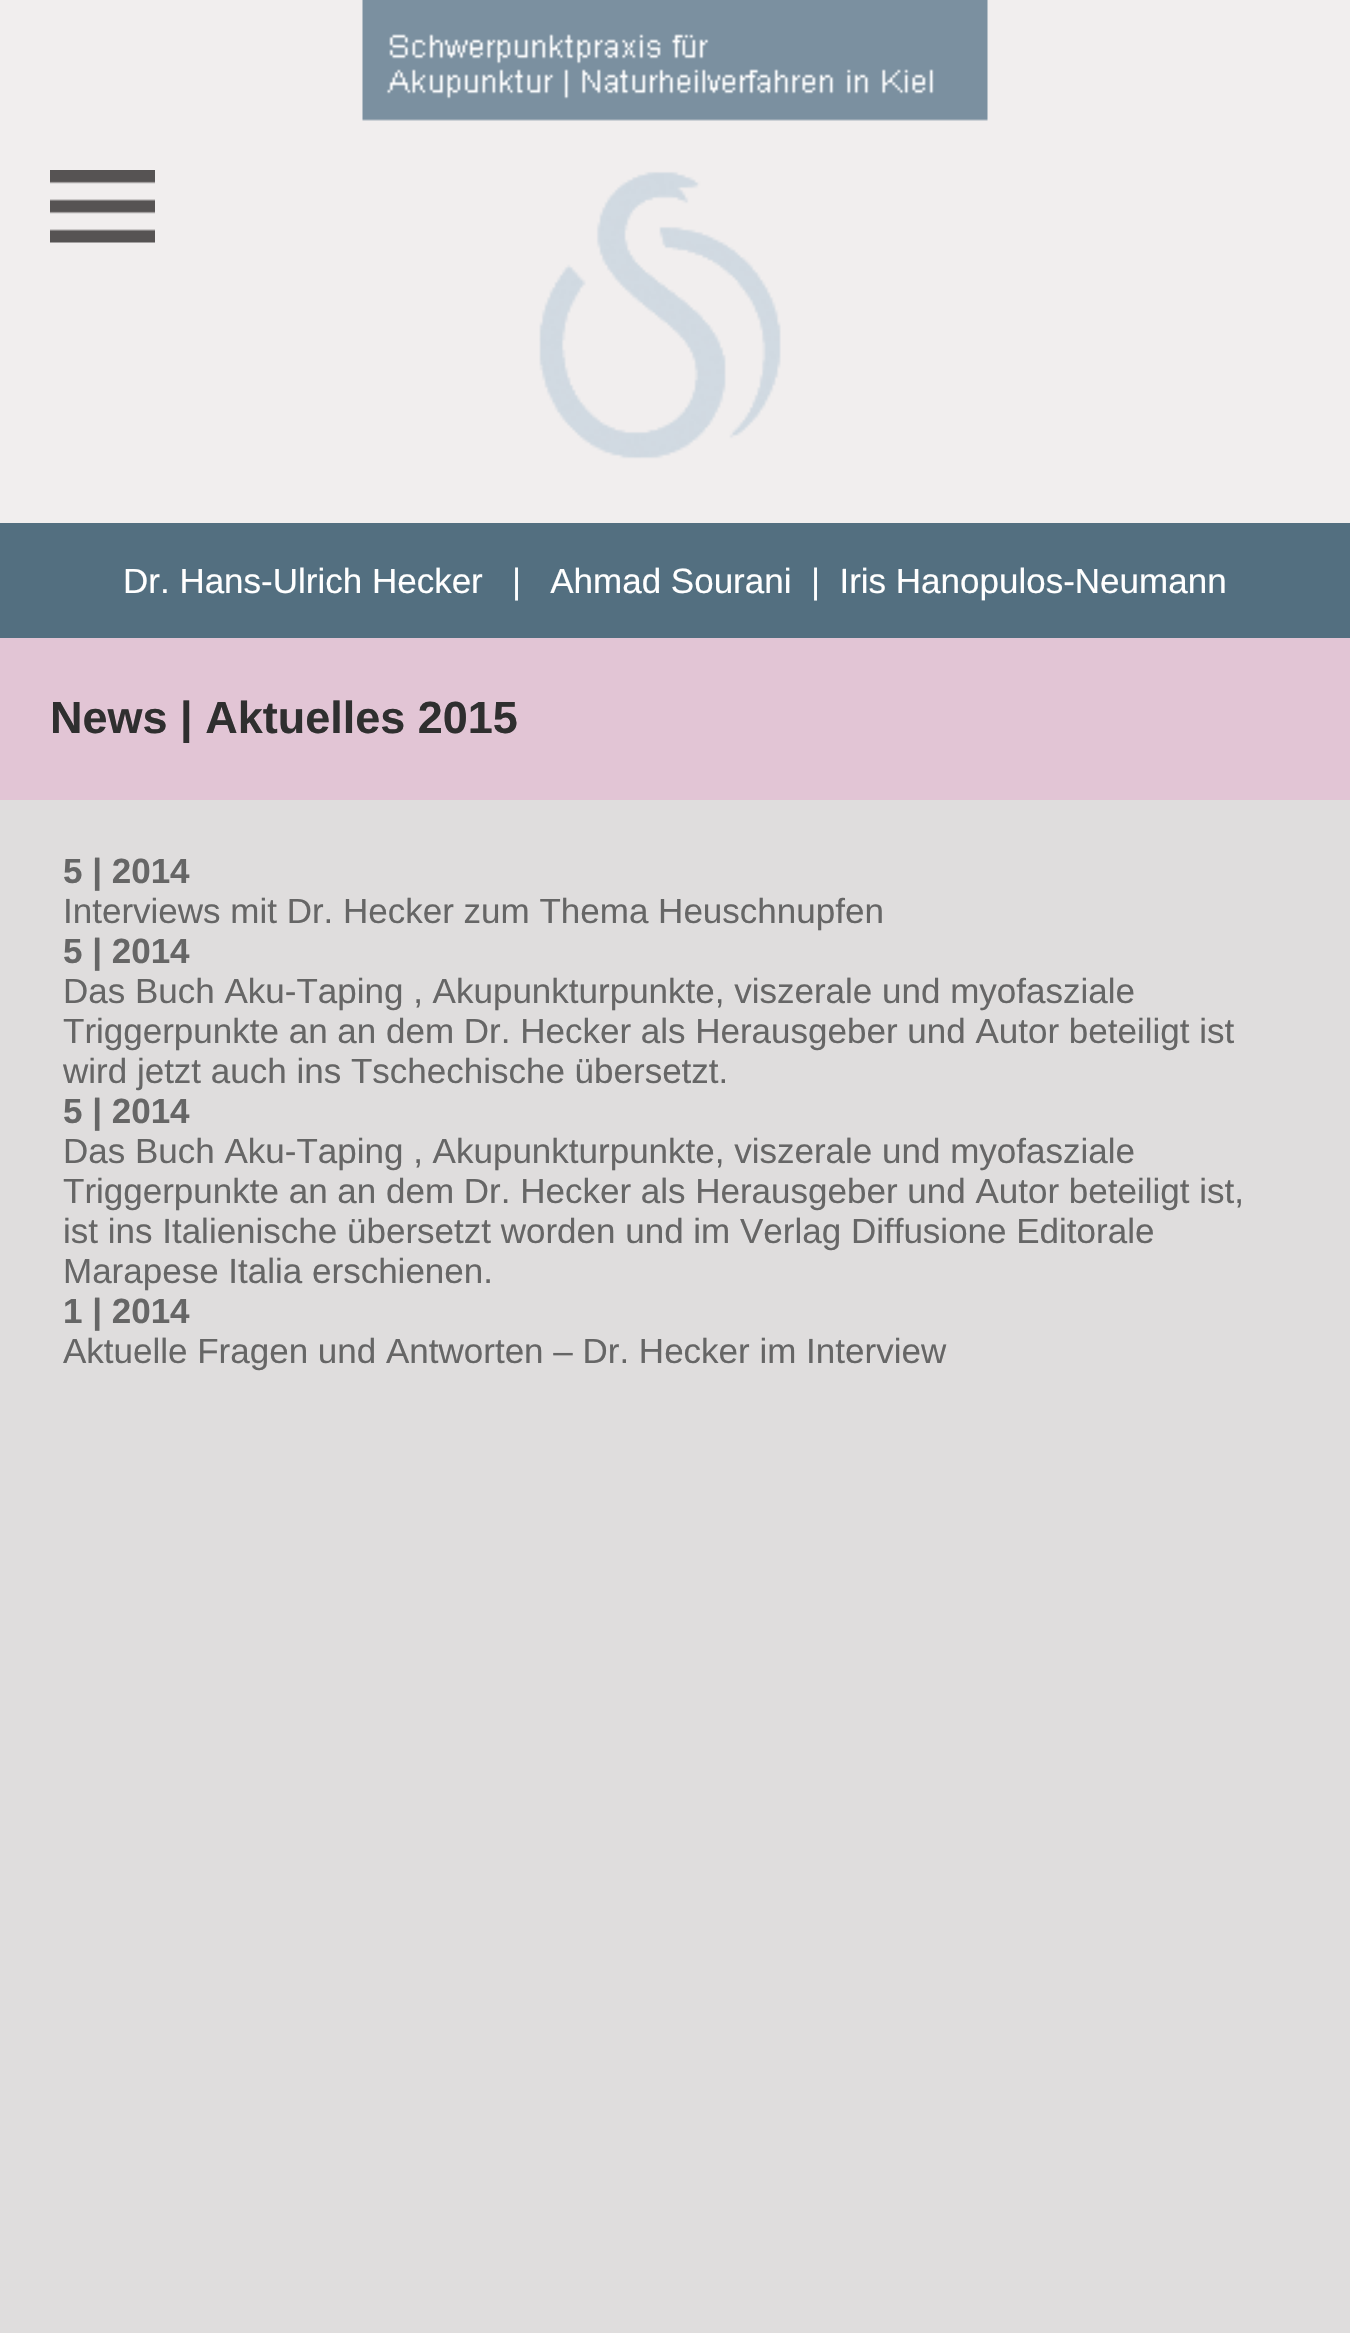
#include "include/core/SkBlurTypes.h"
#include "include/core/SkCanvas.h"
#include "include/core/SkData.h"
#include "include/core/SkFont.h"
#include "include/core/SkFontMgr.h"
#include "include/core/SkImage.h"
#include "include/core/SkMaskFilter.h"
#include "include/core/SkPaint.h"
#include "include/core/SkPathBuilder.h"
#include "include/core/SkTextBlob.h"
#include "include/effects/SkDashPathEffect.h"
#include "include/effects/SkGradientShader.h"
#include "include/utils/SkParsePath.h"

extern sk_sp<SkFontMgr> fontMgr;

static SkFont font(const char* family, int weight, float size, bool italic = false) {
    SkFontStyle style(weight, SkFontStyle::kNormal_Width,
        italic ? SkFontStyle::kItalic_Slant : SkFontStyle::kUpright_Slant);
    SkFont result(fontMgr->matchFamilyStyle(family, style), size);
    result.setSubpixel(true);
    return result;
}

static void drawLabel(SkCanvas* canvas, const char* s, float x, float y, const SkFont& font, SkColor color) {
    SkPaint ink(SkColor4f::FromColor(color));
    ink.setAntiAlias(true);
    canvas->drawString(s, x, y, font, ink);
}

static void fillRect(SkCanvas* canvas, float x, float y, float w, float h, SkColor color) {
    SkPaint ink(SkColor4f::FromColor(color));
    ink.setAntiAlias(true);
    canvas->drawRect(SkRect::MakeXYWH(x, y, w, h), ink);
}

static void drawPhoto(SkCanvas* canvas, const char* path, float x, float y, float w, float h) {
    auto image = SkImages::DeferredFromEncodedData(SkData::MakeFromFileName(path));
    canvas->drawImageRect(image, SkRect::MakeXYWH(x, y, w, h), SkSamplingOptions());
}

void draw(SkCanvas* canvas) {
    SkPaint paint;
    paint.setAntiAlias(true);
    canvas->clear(0xFFF1EEEE);
    drawPhoto(canvas, "assets/img1.png", 362, 0, 626, 459);
    fillRect(canvas, 0, 800, 1350, 1533, 0xFFDFDDDD);
    drawPhoto(canvas, "assets/img2.png", 50, 170, 105, 73);
    fillRect(canvas, 0, 523, 1350, 115, 0xFF536F80);
    SkFont font1 = font("Liberation Sans", 400, 35);
    drawLabel(canvas, "Dr. Hans-Ulrich Hecker   |   Ahmad Sourani  |  Iris Hanopulos-Neumann", 123, 593, font1, 0xFFFFFFFF);
    fillRect(canvas, 0, 638, 1350, 162, 0xFFE2C5D5);
    SkFont font2 = font("Liberation Sans", 700, 45);
    drawLabel(canvas, "News | Aktuelles 2015", 50, 733, font2, 0xFF2F2F2F);
    SkFont font3 = font("Liberation Sans", 700, 35);
    drawLabel(canvas, "5 | 2014", 63, 883, font3, 0xFF666666);
    drawLabel(canvas, "Interviews mit Dr. Hecker zum Thema Heuschnupfen", 63, 923, font1, 0xFF666666);
    drawLabel(canvas, "5 | 2014", 63, 963, font3, 0xFF666666);
    drawLabel(canvas, "Das Buch Aku-Taping , Akupunkturpunkte, viszerale und myofasziale", 63, 1003, font1, 0xFF666666);
    drawLabel(canvas, "Triggerpunkte an an dem Dr. Hecker als Herausgeber und Autor beteiligt ist", 63, 1043, font1, 0xFF666666);
    drawLabel(canvas, "wird jetzt auch ins Tschechische übersetzt.", 63, 1083, font1, 0xFF666666);
    drawLabel(canvas, "5 | 2014", 63, 1123, font3, 0xFF666666);
    drawLabel(canvas, "Das Buch Aku-Taping , Akupunkturpunkte, viszerale und myofasziale", 63, 1163, font1, 0xFF666666);
    drawLabel(canvas, "Triggerpunkte an an dem Dr. Hecker als Herausgeber und Autor beteiligt ist,", 63, 1203, font1, 0xFF666666);
    drawLabel(canvas, "ist ins Italienische übersetzt worden und im Verlag Diffusione Editorale", 63, 1243, font1, 0xFF666666);
    drawLabel(canvas, "Marapese Italia erschienen.", 63, 1283, font1, 0xFF666666);
    drawLabel(canvas, "1 | 2014", 63, 1323, font3, 0xFF666666);
    drawLabel(canvas, "Aktuelle Fragen und Antworten – Dr. Hecker im Interview", 63, 1363, font1, 0xFF666666);
}
